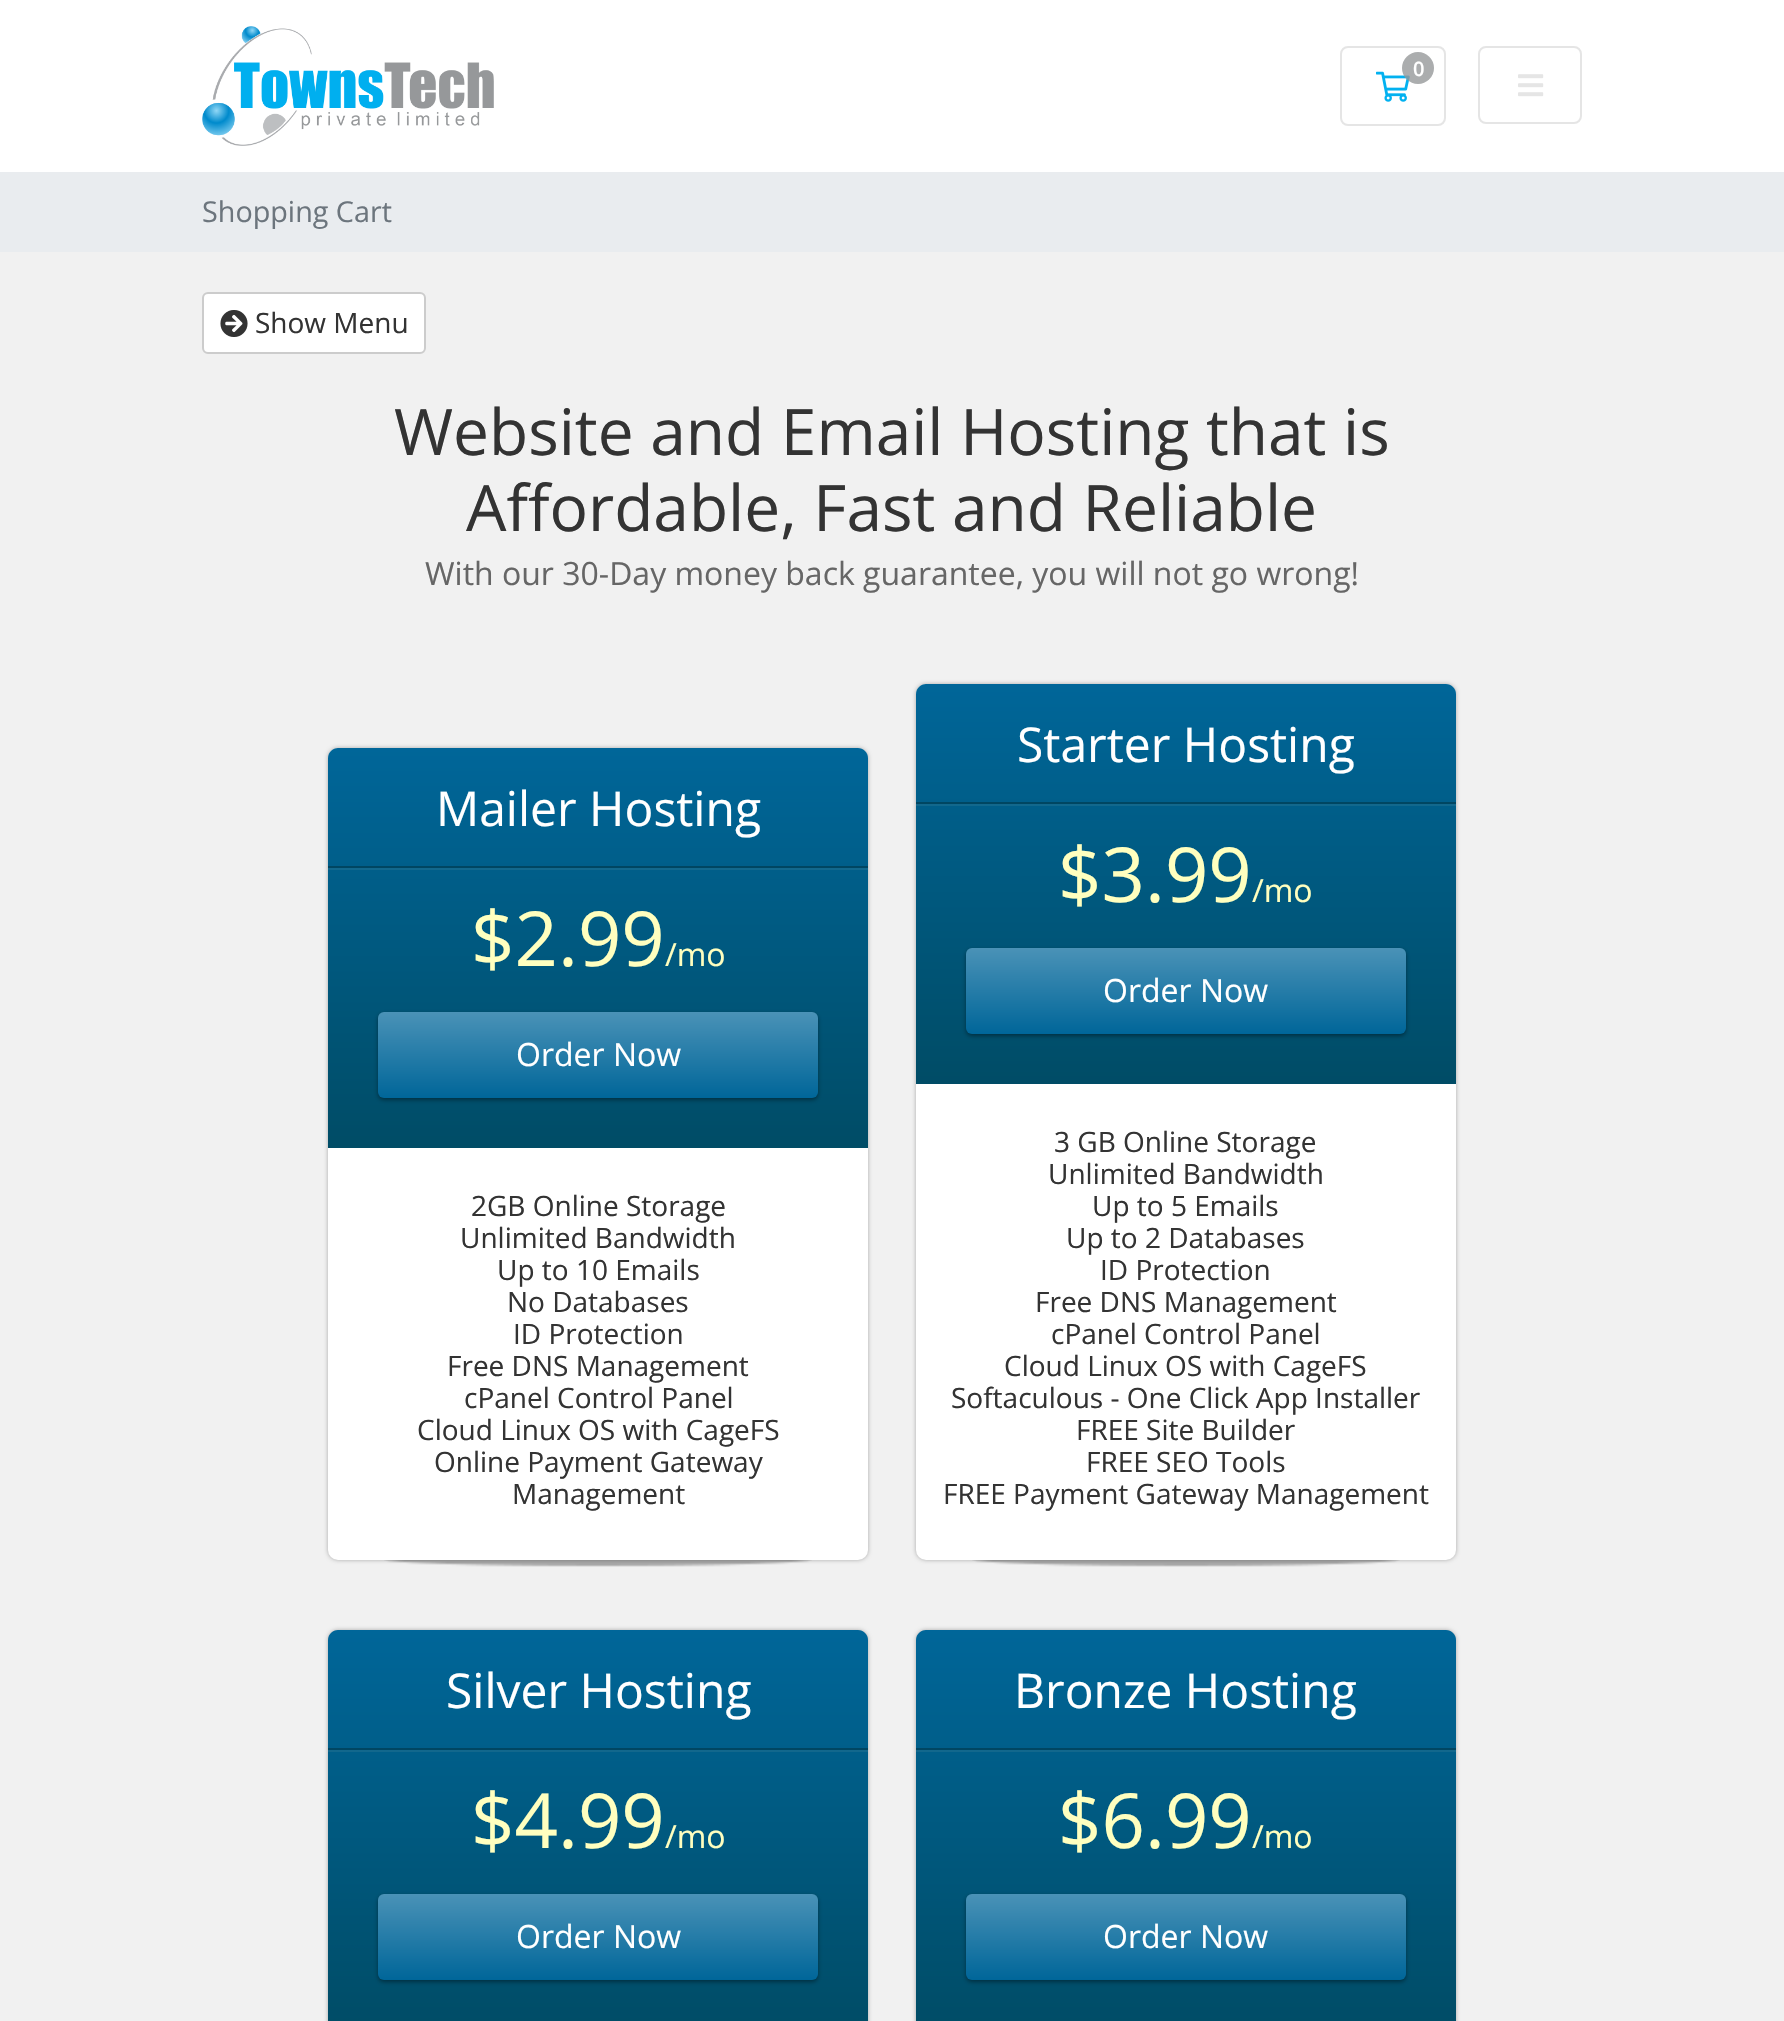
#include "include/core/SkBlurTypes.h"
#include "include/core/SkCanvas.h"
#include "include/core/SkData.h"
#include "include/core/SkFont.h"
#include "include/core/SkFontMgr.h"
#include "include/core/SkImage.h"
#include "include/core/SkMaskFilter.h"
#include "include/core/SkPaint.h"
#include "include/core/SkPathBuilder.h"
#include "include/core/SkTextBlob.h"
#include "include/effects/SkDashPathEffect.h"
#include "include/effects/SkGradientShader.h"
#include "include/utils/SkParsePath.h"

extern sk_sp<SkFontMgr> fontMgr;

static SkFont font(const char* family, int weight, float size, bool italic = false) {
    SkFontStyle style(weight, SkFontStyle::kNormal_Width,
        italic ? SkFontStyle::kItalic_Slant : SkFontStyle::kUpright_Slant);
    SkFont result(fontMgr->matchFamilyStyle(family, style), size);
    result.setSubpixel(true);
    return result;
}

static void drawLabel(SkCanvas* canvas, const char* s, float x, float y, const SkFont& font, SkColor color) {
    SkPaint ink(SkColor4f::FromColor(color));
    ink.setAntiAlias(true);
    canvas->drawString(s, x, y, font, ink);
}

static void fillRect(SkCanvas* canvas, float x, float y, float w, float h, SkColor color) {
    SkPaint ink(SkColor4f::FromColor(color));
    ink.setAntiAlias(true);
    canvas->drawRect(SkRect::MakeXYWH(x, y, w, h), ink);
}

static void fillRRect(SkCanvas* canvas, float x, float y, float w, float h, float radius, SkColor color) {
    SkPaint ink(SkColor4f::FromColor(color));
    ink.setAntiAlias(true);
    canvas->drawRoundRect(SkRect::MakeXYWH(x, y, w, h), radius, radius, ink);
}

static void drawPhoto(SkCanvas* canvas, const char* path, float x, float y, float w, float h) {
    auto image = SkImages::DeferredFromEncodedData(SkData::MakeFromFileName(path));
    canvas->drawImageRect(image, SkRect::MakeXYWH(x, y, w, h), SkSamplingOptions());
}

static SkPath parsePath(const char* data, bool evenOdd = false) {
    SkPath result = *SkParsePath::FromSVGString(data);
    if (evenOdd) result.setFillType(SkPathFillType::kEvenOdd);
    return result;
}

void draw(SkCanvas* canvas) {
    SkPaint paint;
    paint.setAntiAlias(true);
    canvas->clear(0xFFF1F1F1);
    fillRect(canvas, 0, 0, 1784, 172, 0xFFFFFFFF);
    drawPhoto(canvas, "assets/img1.png", 202, 26, 292, 120);
    paint.setStroke(true);
    paint.setStrokeWidth(2);
    paint.setColor(0xFFE5E5E5);
    canvas->drawRoundRect(SkRect::MakeXYWH(1341, 47, 104, 78), 7, 7, paint);
    drawPhoto(canvas, "assets/img2.png", 1376, 71, 34, 31);
    paint.setStroke(false);
    paint.setColor(0xCC96989A);
    canvas->drawCircle(1418, 68, 16, paint);
    SkFont font1 = font("Open Sans", 600, 20);
    drawLabel(canvas, "0", 1413, 76, font1, 0xFFFFFFFF);
    paint.setStroke(true);
    paint.setColor(0xFFE5E5E5);
    canvas->drawRoundRect(SkRect::MakeXYWH(1479, 47, 102, 76), 7, 7, paint);
    drawPhoto(canvas, "assets/img3.png", 1518, 74, 26, 23);
    fillRect(canvas, 0, 172, 1784, 80, 0xFFE9ECEF);
    SkFont font2 = font("Open Sans", 400, 28.75f);
    drawLabel(canvas, "Shopping Cart", 202, 222, font2, 0xFF6C757D);
    paint.setStroke(false);
    paint.setColor(0xFFFFFFFF);
    canvas->drawRoundRect(SkRect::MakeXYWH(203, 293, 222, 60), 5, 5, paint);
    paint.setStroke(true);
    paint.setColor(0xFFCCCCCC);
    canvas->drawRoundRect(SkRect::MakeXYWH(203, 293, 222, 60), 5, 5, paint);
    drawPhoto(canvas, "assets/img4.png", 220, 310, 28, 27);
    SkFont font3 = font("Open Sans", 400, 28);
    drawLabel(canvas, "Show Menu", 255, 333, font3, 0xFF333333);
    SkFont font4 = font("Open Sans", 400, 64);
    drawLabel(canvas, "Website and Email Hosting that is", 394, 455, font4, 0xFF333333);
    drawLabel(canvas, "Affordable, Fast and Reliable", 466, 531, font4, 0xFF333333);
    SkFont font5 = font("Open Sans", 400, 32);
    drawLabel(canvas, "With our 30-Day money back guarantee, you will not go wrong!", 425, 585, font5, 0xFF666666);
    drawPhoto(canvas, "assets/img5.png", 384, 1560, 428, 7);
    paint.setStroke(false);
    paint.setColor(0x4D000000);
    paint.setMaskFilter(SkMaskFilter::MakeBlur(kNormal_SkBlurStyle, 2));
    canvas->drawRoundRect(SkRect::MakeXYWH(328, 748, 540, 812), 10, 10, paint);
    paint.setMaskFilter(nullptr);
    fillRRect(canvas, 328, 748, 540, 812, 10, 0xFFFFFFFF);
    {
        const SkColor colors[] = {0xFF006699, 0xFF004C66};
        const float stops[] = {0, 1};
        const SkPoint ends[] = {{598, 748}, {598, 1148}};
        paint.setShader(SkGradientShader::MakeLinear(ends, colors, stops, 2, SkTileMode::kClamp));
        paint.setAlpha(255);
    }
    canvas->drawPath(parsePath("M338 748H858C863.5 748 868 752.5 868 758V1148H328V758C328 752.5 332.5 748 338 748Z"), paint);
    fillRect(canvas, 328, 866, 540, 2, 0xFF004662);
    SkFont font6 = font("Open Sans", 400, 48);
    drawLabel(canvas, "Mailer Hosting", 436, 826, font6, 0xFFFFFFFF);
    fillRect(canvas, 328, 868, 540, 2, 0xFF12688D);
    SkFont font7 = font("Open Sans", 400, 76);
    drawLabel(canvas, "$2.99", 471, 966, font7, 0xFFFFFFBF);
    drawLabel(canvas, "/mo", 665, 966, font5, 0xFFFFFFBF);
    paint.setShader(nullptr);
    paint.setColor(0x66000000);
    paint.setMaskFilter(SkMaskFilter::MakeBlur(kNormal_SkBlurStyle, 2));
    canvas->drawRoundRect(SkRect::MakeXYWH(378, 1014, 440, 86), 6, 6, paint);
    paint.setMaskFilter(nullptr);
    {
        const SkColor colors[] = {0xFF4A92B7, 0xFF006699};
        const float stops[] = {0, 1};
        const SkPoint ends[] = {{598, 1012}, {598, 1098}};
        paint.setShader(SkGradientShader::MakeLinear(ends, colors, stops, 2, SkTileMode::kClamp));
        paint.setAlpha(255);
    }
    canvas->drawRoundRect(SkRect::MakeXYWH(378, 1012, 440, 86), 6, 6, paint);
    drawLabel(canvas, "Order Now", 516, 1066, font5, 0xFFFFFFFF);
    drawLabel(canvas, "2GB Online Storage", 471, 1216, font3, 0xFF333333);
    drawLabel(canvas, "Unlimited Bandwidth", 460, 1248, font3, 0xFF333333);
    drawLabel(canvas, "Up to 10 Emails", 497, 1280, font3, 0xFF333333);
    drawLabel(canvas, "No Databases", 507, 1312, font3, 0xFF333333);
    drawLabel(canvas, "ID Protection", 513, 1344, font3, 0xFF333333);
    drawLabel(canvas, "Free DNS Management", 447, 1376, font3, 0xFF333333);
    drawLabel(canvas, "cPanel Control Panel", 464, 1408, font3, 0xFF333333);
    drawLabel(canvas, "Cloud Linux OS with CageFS", 417, 1440, font3, 0xFF333333);
    drawLabel(canvas, "Online Payment Gateway", 434, 1472, font3, 0xFF333333);
    drawLabel(canvas, "Management", 512, 1504, font3, 0xFF333333);
    drawPhoto(canvas, "assets/img5.png", 972, 1560, 428, 7);
    paint.setShader(nullptr);
    paint.setColor(0x4D000000);
    paint.setMaskFilter(SkMaskFilter::MakeBlur(kNormal_SkBlurStyle, 2));
    canvas->drawRoundRect(SkRect::MakeXYWH(916, 684, 540, 876), 10, 10, paint);
    paint.setMaskFilter(nullptr);
    fillRRect(canvas, 916, 684, 540, 876, 10, 0xFFFFFFFF);
    {
        const SkColor colors[] = {0xFF006699, 0xFF004C66};
        const float stops[] = {0, 1};
        const SkPoint ends[] = {{1186, 684}, {1186, 1084}};
        paint.setShader(SkGradientShader::MakeLinear(ends, colors, stops, 2, SkTileMode::kClamp));
        paint.setAlpha(255);
    }
    canvas->drawPath(parsePath("M926 684H1446C1451.5 684 1456 688.5 1456 694V1084H916V694C916 688.5 920.5 684 926 684Z"), paint);
    fillRect(canvas, 916, 802, 540, 2, 0xFF004662);
    drawLabel(canvas, "Starter Hosting", 1017, 762, font6, 0xFFFFFFFF);
    fillRect(canvas, 916, 804, 540, 2, 0xFF12688D);
    drawLabel(canvas, "$3.99", 1058, 902, font7, 0xFFFFFFBF);
    drawLabel(canvas, "/mo", 1252, 902, font5, 0xFFFFFFBF);
    paint.setShader(nullptr);
    paint.setColor(0x66000000);
    paint.setMaskFilter(SkMaskFilter::MakeBlur(kNormal_SkBlurStyle, 2));
    canvas->drawRoundRect(SkRect::MakeXYWH(966, 950, 440, 86), 6, 6, paint);
    paint.setMaskFilter(nullptr);
    {
        const SkColor colors[] = {0xFF4A92B7, 0xFF006699};
        const float stops[] = {0, 1};
        const SkPoint ends[] = {{1186, 948}, {1186, 1034}};
        paint.setShader(SkGradientShader::MakeLinear(ends, colors, stops, 2, SkTileMode::kClamp));
        paint.setAlpha(255);
    }
    canvas->drawRoundRect(SkRect::MakeXYWH(966, 948, 440, 86), 6, 6, paint);
    drawLabel(canvas, "Order Now", 1103, 1002, font5, 0xFFFFFFFF);
    drawLabel(canvas, "3 GB Online Storage", 1054, 1152, font3, 0xFF333333);
    drawLabel(canvas, "Unlimited Bandwidth", 1048, 1184, font3, 0xFF333333);
    drawLabel(canvas, "Up to 5 Emails", 1092, 1216, font3, 0xFF333333);
    drawLabel(canvas, "Up to 2 Databases", 1066, 1248, font3, 0xFF333333);
    drawLabel(canvas, "ID Protection", 1100, 1280, font3, 0xFF333333);
    drawLabel(canvas, "Free DNS Management", 1035, 1312, font3, 0xFF333333);
    drawLabel(canvas, "cPanel Control Panel", 1051, 1344, font3, 0xFF333333);
    drawLabel(canvas, "Cloud Linux OS with CageFS", 1004, 1376, font3, 0xFF333333);
    drawLabel(canvas, "Softaculous - One Click App Installer", 951, 1408, font3, 0xFF333333);
    drawLabel(canvas, "FREE Site Builder", 1076, 1440, font3, 0xFF333333);
    drawLabel(canvas, "FREE SEO Tools", 1086, 1472, font3, 0xFF333333);
    drawLabel(canvas, "FREE Payment Gateway Management", 943, 1504, font3, 0xFF333333);
    paint.setShader(nullptr);
    paint.setColor(0x4D000000);
    paint.setMaskFilter(SkMaskFilter::MakeBlur(kNormal_SkBlurStyle, 2));
    canvas->drawRoundRect(SkRect::MakeXYWH(328, 1630, 540, 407), 10, 10, paint);
    paint.setMaskFilter(nullptr);
    {
        const SkColor colors[] = {0xFF006699, 0xFF004C66};
        const float stops[] = {0, 1};
        const SkPoint ends[] = {{598, 1630}, {598, 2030}};
        paint.setShader(SkGradientShader::MakeLinear(ends, colors, stops, 2, SkTileMode::kClamp));
        paint.setAlpha(255);
    }
    canvas->drawPath(parsePath("M338 1630H858C863.5 1630 868 1634.5 868 1640V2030H328V1640C328 1634.5 332.5 1630 338 1630Z"), paint);
    fillRect(canvas, 328, 1748, 540, 2, 0xFF004662);
    drawLabel(canvas, "Silver Hosting", 446, 1708, font6, 0xFFFFFFFF);
    fillRect(canvas, 328, 1750, 540, 2, 0xFF12688D);
    drawLabel(canvas, "$4.99", 471, 1848, font7, 0xFFFFFFBF);
    drawLabel(canvas, "/mo", 665, 1848, font5, 0xFFFFFFBF);
    paint.setShader(nullptr);
    paint.setColor(0x66000000);
    paint.setMaskFilter(SkMaskFilter::MakeBlur(kNormal_SkBlurStyle, 2));
    canvas->drawRoundRect(SkRect::MakeXYWH(378, 1896, 440, 86), 6, 6, paint);
    paint.setMaskFilter(nullptr);
    {
        const SkColor colors[] = {0xFF4A92B7, 0xFF006699};
        const float stops[] = {0, 1};
        const SkPoint ends[] = {{598, 1894}, {598, 1980}};
        paint.setShader(SkGradientShader::MakeLinear(ends, colors, stops, 2, SkTileMode::kClamp));
        paint.setAlpha(255);
    }
    canvas->drawRoundRect(SkRect::MakeXYWH(378, 1894, 440, 86), 6, 6, paint);
    drawLabel(canvas, "Order Now", 516, 1948, font5, 0xFFFFFFFF);
    paint.setShader(nullptr);
    paint.setColor(0x4D000000);
    paint.setMaskFilter(SkMaskFilter::MakeBlur(kNormal_SkBlurStyle, 2));
    canvas->drawRoundRect(SkRect::MakeXYWH(916, 1630, 540, 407), 10, 10, paint);
    paint.setMaskFilter(nullptr);
    {
        const SkColor colors[] = {0xFF006699, 0xFF004C66};
        const float stops[] = {0, 1};
        const SkPoint ends[] = {{1186, 1630}, {1186, 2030}};
        paint.setShader(SkGradientShader::MakeLinear(ends, colors, stops, 2, SkTileMode::kClamp));
        paint.setAlpha(255);
    }
    canvas->drawPath(parsePath("M926 1630H1446C1451.5 1630 1456 1634.5 1456 1640V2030H916V1640C916 1634.5 920.5 1630 926 1630Z"), paint);
    fillRect(canvas, 916, 1748, 540, 2, 0xFF004662);
    drawLabel(canvas, "Bronze Hosting", 1014, 1708, font6, 0xFFFFFFFF);
    fillRect(canvas, 916, 1750, 540, 2, 0xFF12688D);
    drawLabel(canvas, "$6.99", 1058, 1848, font7, 0xFFFFFFBF);
    drawLabel(canvas, "/mo", 1252, 1848, font5, 0xFFFFFFBF);
    paint.setShader(nullptr);
    paint.setColor(0x66000000);
    paint.setMaskFilter(SkMaskFilter::MakeBlur(kNormal_SkBlurStyle, 2));
    canvas->drawRoundRect(SkRect::MakeXYWH(966, 1896, 440, 86), 6, 6, paint);
    paint.setMaskFilter(nullptr);
    {
        const SkColor colors[] = {0xFF4A92B7, 0xFF006699};
        const float stops[] = {0, 1};
        const SkPoint ends[] = {{1186, 1894}, {1186, 1980}};
        paint.setShader(SkGradientShader::MakeLinear(ends, colors, stops, 2, SkTileMode::kClamp));
        paint.setAlpha(255);
    }
    canvas->drawRoundRect(SkRect::MakeXYWH(966, 1894, 440, 86), 6, 6, paint);
    drawLabel(canvas, "Order Now", 1103, 1948, font5, 0xFFFFFFFF);
}
